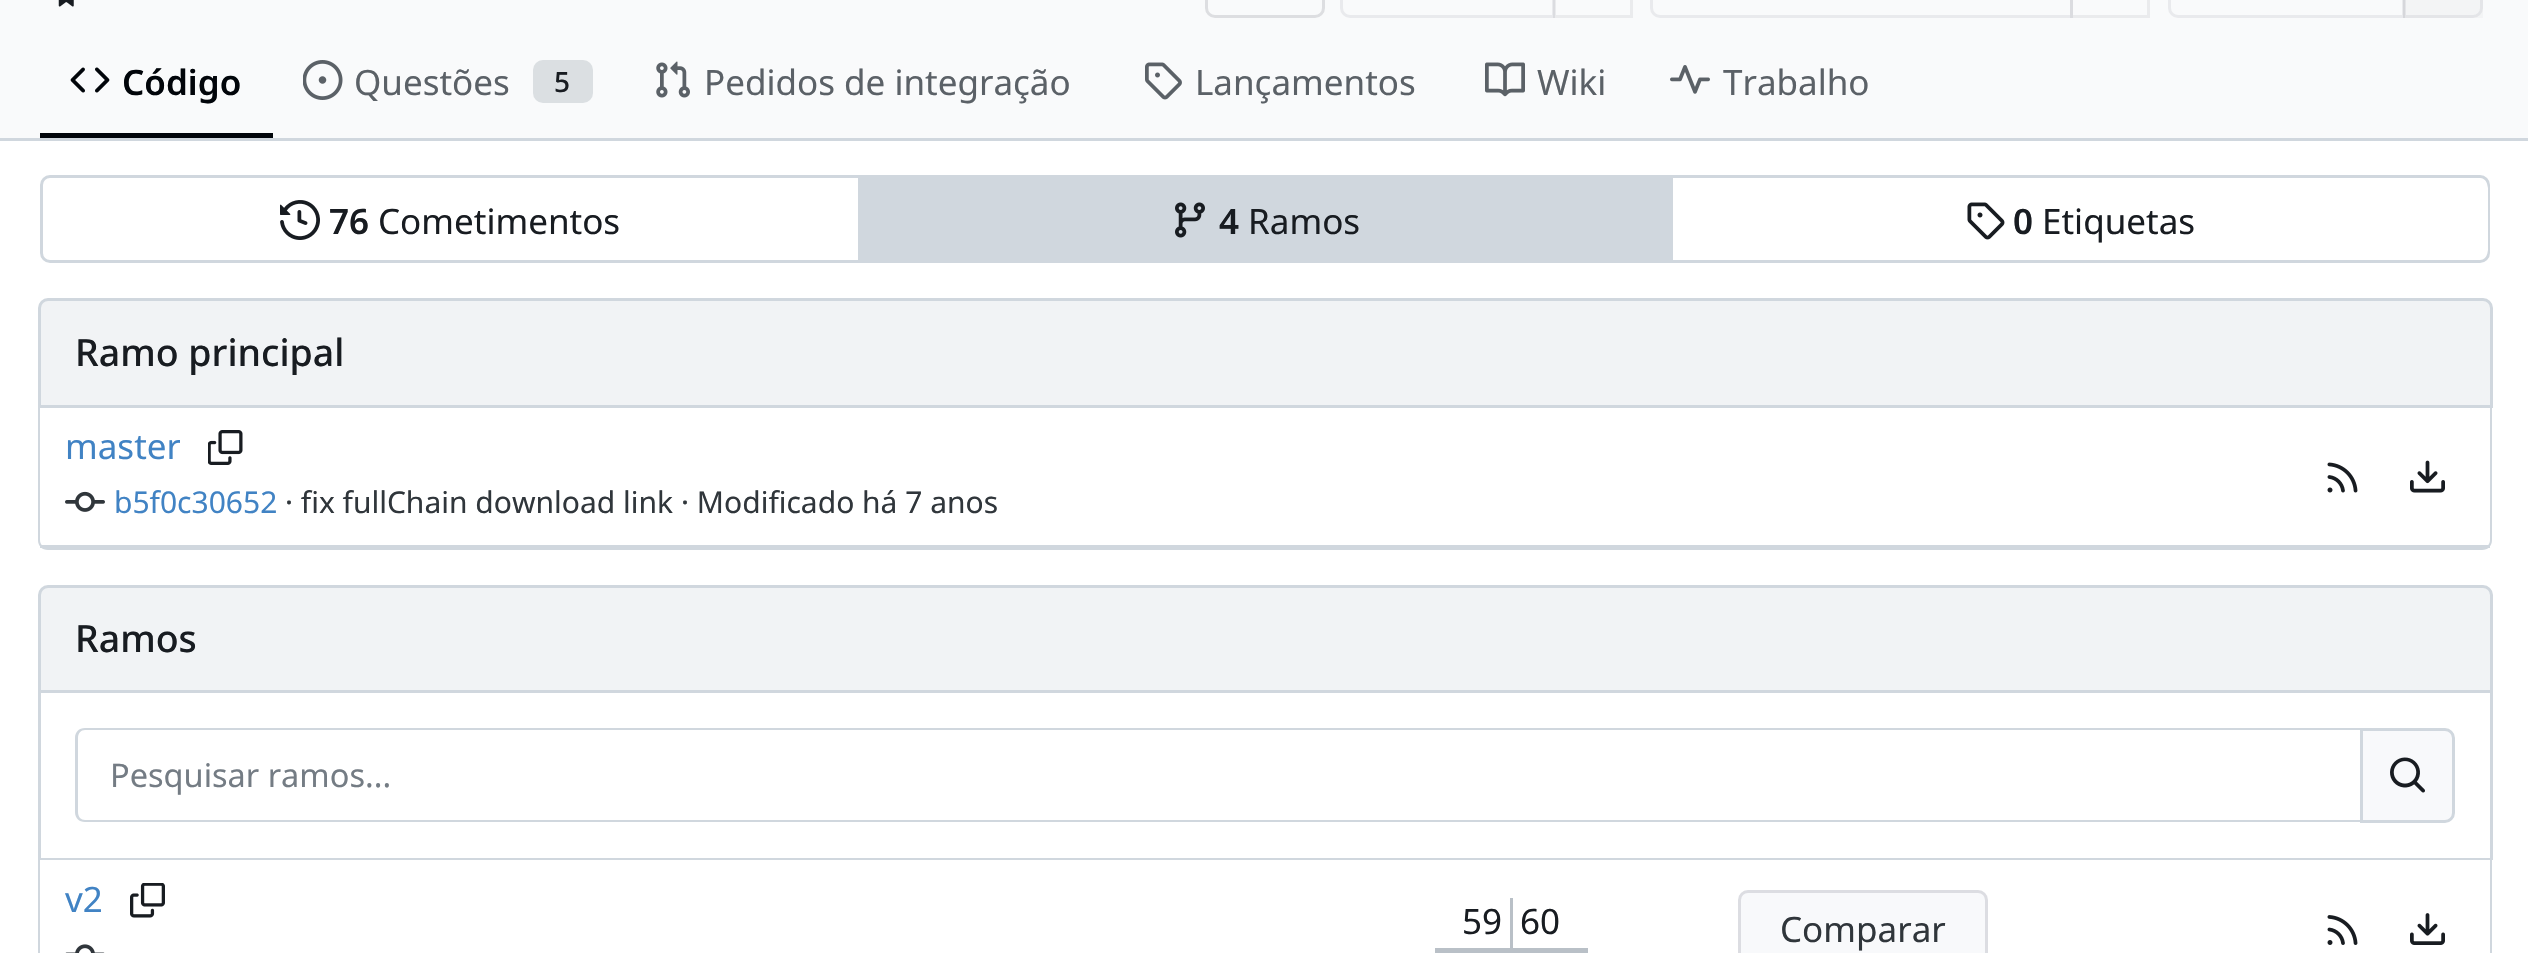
#include "include/core/SkBlurTypes.h"
#include "include/core/SkCanvas.h"
#include "include/core/SkData.h"
#include "include/core/SkFont.h"
#include "include/core/SkFontMgr.h"
#include "include/core/SkImage.h"
#include "include/core/SkMaskFilter.h"
#include "include/core/SkPaint.h"
#include "include/core/SkPathBuilder.h"
#include "include/core/SkTextBlob.h"
#include "include/effects/SkDashPathEffect.h"
#include "include/effects/SkGradientShader.h"
#include "include/utils/SkParsePath.h"

extern sk_sp<SkFontMgr> fontMgr;

static SkFont font(const char* family, int weight, float size, bool italic = false) {
    SkFontStyle style(weight, SkFontStyle::kNormal_Width,
        italic ? SkFontStyle::kItalic_Slant : SkFontStyle::kUpright_Slant);
    SkFont result(fontMgr->matchFamilyStyle(family, style), size);
    result.setSubpixel(true);
    return result;
}

static void drawLabel(SkCanvas* canvas, const char* s, float x, float y, const SkFont& font, SkColor color) {
    SkPaint ink(SkColor4f::FromColor(color));
    ink.setAntiAlias(true);
    canvas->drawString(s, x, y, font, ink);
}

static void fillRect(SkCanvas* canvas, float x, float y, float w, float h, SkColor color) {
    SkPaint ink(SkColor4f::FromColor(color));
    ink.setAntiAlias(true);
    canvas->drawRect(SkRect::MakeXYWH(x, y, w, h), ink);
}

static void fillRRect(SkCanvas* canvas, float x, float y, float w, float h, float radius, SkColor color) {
    SkPaint ink(SkColor4f::FromColor(color));
    ink.setAntiAlias(true);
    canvas->drawRoundRect(SkRect::MakeXYWH(x, y, w, h), radius, radius, ink);
}

static void drawPhoto(SkCanvas* canvas, const char* path, float x, float y, float w, float h) {
    auto image = SkImages::DeferredFromEncodedData(SkData::MakeFromFileName(path));
    canvas->drawImageRect(image, SkRect::MakeXYWH(x, y, w, h), SkSamplingOptions());
}

static SkPath parsePath(const char* data, bool evenOdd = false) {
    SkPath result = *SkParsePath::FromSVGString(data);
    if (evenOdd) result.setFillType(SkPathFillType::kEvenOdd);
    return result;
}

void draw(SkCanvas* canvas) {
    SkPaint paint;
    paint.setAntiAlias(true);
    canvas->clear(0xFFFFFFFF);
    fillRect(canvas, 0, 0, 2528, 138, 0xFFF9FAFB);
    drawPhoto(canvas, "assets/img1.png", 58, 0, 16, 7);
    paint.setStroke(true);
    paint.setStrokeWidth(3);
    paint.setColor(0xFFDDDEE1);
    canvas->drawRoundRect(SkRect::MakeXYWH(1206.5f, -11.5f, 117, 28), 8.5f, 8.5f, paint);
    paint.setColor(0xFFE9EAED);
    canvas->drawPath(parsePath("M1350-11.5H1553.5V16.5H1350C1345.5 16.5 1341.5 12.5 1341.5 8V-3C1341.5-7.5 1345.5-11.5 1350-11.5Z"), paint);
    paint.setColor(0x0F000017);
    canvas->drawRect(SkRect::MakeXYWH(1554.5f, -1.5f, 77, 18), paint);
    paint.setColor(0xFFE9EAED);
    canvas->drawPath(parsePath("M1660-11.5H2071.5V16.5H1660C1655.5 16.5 1651.5 12.5 1651.5 8V-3C1651.5-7.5 1655.5-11.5 1660-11.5Z"), paint);
    paint.setColor(0x0F000017);
    canvas->drawRect(SkRect::MakeXYWH(2071.5f, -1.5f, 77, 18), paint);
    paint.setColor(0xFFE9EAED);
    canvas->drawPath(parsePath("M2178-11.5H2403.5V16.5H2178C2173.5 16.5 2169.5 12.5 2169.5 8V-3C2169.5-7.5 2173.5-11.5 2178-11.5Z"), paint);
    fillRect(canvas, 2403, 0, 80, 18, 0x0A707171);
    paint.setColor(0x1C70717E);
    canvas->drawPath(parsePath("M2404.5-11.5H2473C2477.5-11.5 2481.5-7.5 2481.5-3V8C2481.5 12.5 2477.5 16.5 2473 16.5H2404.5Z"), paint);
    fillRect(canvas, 40, 133, 233, 5, 0xFF01050A);
    drawPhoto(canvas, "assets/img2.png", 70, 67, 40, 26);
    SkFont font1 = font("Noto Sans", 600, 35);
    drawLabel(canvas, "Código", 122, 95, font1, 0xFF01050A);
    drawPhoto(canvas, "assets/img3.png", 303, 60, 40, 40);
    SkFont font2 = font("Noto Sans", 400, 35);
    drawLabel(canvas, "Questões", 354, 95, font2, 0xFF5B6167);
    fillRRect(canvas, 533, 60, 60, 43, 10, 0xFFDBDFE2);
    SkFont font3 = font("Noto Sans", 500, 28);
    drawLabel(canvas, "5", 554, 92, font3, 0xFF181C21);
    drawPhoto(canvas, "assets/img4.png", 656, 61, 34, 37);
    drawLabel(canvas, "Pedidos de integração", 704, 95, font2, 0xFF5B6167);
    drawPhoto(canvas, "assets/img5.png", 1145, 62, 37, 38);
    drawLabel(canvas, "Lançamentos", 1195, 95, font2, 0xFF5B6167);
    drawPhoto(canvas, "assets/img6.png", 1485, 62, 40, 35);
    drawLabel(canvas, "Wiki", 1537, 95, font2, 0xFF5B6167);
    drawPhoto(canvas, "assets/img7.png", 1670, 65, 40, 29);
    drawLabel(canvas, "Trabalho", 1723, 95, font2, 0xFF5B6167);
    fillRect(canvas, 0, 138, 2528, 3, 0xFFD0D7DE);
    paint.setColor(0xFFD0D7DE);
    canvas->drawRoundRect(SkRect::MakeXYWH(41.5f, 176.5f, 2447, 85), 8.5f, 8.5f, paint);
    fillRRect(canvas, 43, 178, 2445, 82, 10, 0xFFFFFFFF);
    drawPhoto(canvas, "assets/img8.png", 280, 200, 40, 40);
    drawLabel(canvas, "76", 329, 234, font1, 0xFF181C21);
    drawLabel(canvas, "Cometimentos", 378, 234, font2, 0xFF181C21);
    fillRect(canvas, 858, 178, 815, 82, 0xFFD0D7DE);
    drawPhoto(canvas, "assets/img9.png", 1175, 202, 30, 36);
    drawLabel(canvas, "4", 1219, 234, font1, 0xFF181C21);
    drawLabel(canvas, "Ramos", 1248, 234, font2, 0xFF181C21);
    drawPhoto(canvas, "assets/img10.png", 1967, 202, 38, 38);
    drawLabel(canvas, "0", 2013, 234, font1, 0xFF181C21);
    drawLabel(canvas, "Etiquetas", 2042, 234, font2, 0xFF181C21);
    paint.setStroke(false);
    paint.setColor(0xFFF1F3F5);
    canvas->drawPath(parsePath("M48 299.5H2483C2487.5 299.5 2491.5 303.5 2491.5 308V406.5H39.5V308C39.5 303.5 43.5 299.5 48 299.5Z"), paint);
    paint.setStroke(true);
    paint.setColor(0xFFD0D7DE);
    canvas->drawPath(parsePath("M48 299.5H2483C2487.5 299.5 2491.5 303.5 2491.5 308V406.5H39.5V308C39.5 303.5 43.5 299.5 48 299.5Z"), paint);
    SkFont font4 = font("Noto Sans", 500, 37.5f);
    drawLabel(canvas, "Ramo principal", 75, 366, font4, 0xFF181C21);
    paint.setStroke(false);
    canvas->drawPath(parsePath("M38 408H2492V540C2492 546 2488 550 2482 550H48C42 550 38 546 38 540ZM40 408H2490V540C2490 544 2487 548 2482 548H48C43 548 40 544 40 540Z", true), paint);
    fillRect(canvas, 40, 545, 2450, 3, 0xFFD0D7DE);
    canvas->save();
    canvas->clipRect(SkRect::MakeXYWH(65, 423, 115, 50));
    drawLabel(canvas, "master", 65, 459, font2, 0xFF4183C4);
    canvas->restore();
    drawPhoto(canvas, "assets/img11.png", 208, 430, 35, 35);
    drawPhoto(canvas, "assets/img12.png", 65, 491, 40, 21);
    SkFont font5 = font("Noto Sans", 400, 30);
    drawLabel(canvas, "b5f0c30652", 114, 513, font5, 0xFF4183C4);
    drawLabel(canvas, "· fix fullChain download link", 285, 513, font5, 0xFF30363B);
    drawLabel(canvas, "· Modificado há 7 anos", 681, 513, font5, 0xFF30363B);
    drawPhoto(canvas, "assets/img13.png", 2327, 462, 31, 31);
    drawPhoto(canvas, "assets/img14.png", 2410, 460, 35, 33);
    paint.setColor(0xFFF1F3F5);
    canvas->drawPath(parsePath("M48 586.5H2483C2487.5 586.5 2491.5 590.5 2491.5 595V691.5H39.5V595C39.5 590.5 43.5 586.5 48 586.5Z"), paint);
    paint.setStroke(true);
    paint.setColor(0xFFD0D7DE);
    canvas->drawPath(parsePath("M48 586.5H2483C2487.5 586.5 2491.5 590.5 2491.5 595V691.5H39.5V595C39.5 590.5 43.5 586.5 48 586.5Z"), paint);
    drawLabel(canvas, "Ramos", 75, 652, font4, 0xFF181C21);
    fillRect(canvas, 2490, 693, 3, 167, 0xFFD0D7DE);
    fillRect(canvas, 38, 858, 2455, 2, 0xFFD0D7DE);
    fillRect(canvas, 38, 693, 3, 167, 0xFFD0D7DE);
    paint.setStroke(false);
    canvas->drawPath(parsePath("M85 728H2360V822H85C79 822 75 818 75 812V738C75 732 79 728 85 728ZM85 730H2360V820H85C81 820 78 817 78 812V738C78 733 81 730 85 730Z", true), paint);
    SkFont font6 = font("Noto Sans", 400, 32.5f);
    drawLabel(canvas, "Pesquisar ramos...", 110, 787, font6, 0xFF747C84);
    paint.setColor(0xFFF8F9FB);
    canvas->drawPath(parsePath("M2361.5 729.5H2445C2449.5 729.5 2453.5 733.5 2453.5 738V813C2453.5 817.5 2449.5 821.5 2445 821.5H2361.5Z"), paint);
    paint.setStroke(true);
    paint.setColor(0xFFD0D7DE);
    canvas->drawPath(parsePath("M2361.5 729.5H2445C2449.5 729.5 2453.5 733.5 2453.5 738V813C2453.5 817.5 2449.5 821.5 2445 821.5H2361.5Z"), paint);
    drawPhoto(canvas, "assets/img15.png", 2390, 757, 35, 36);
    paint.setStroke(false);
    canvas->drawPath(parsePath("M38 860H2492V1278C2492 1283 2488 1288 2482 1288H48C42 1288 38 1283 38 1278ZM40 860H2490V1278C2490 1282 2487 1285 2482 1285H48C43 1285 40 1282 40 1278Z", true), paint);
    drawLabel(canvas, "v2", 65, 912, font2, 0xFF4183C4);
    drawPhoto(canvas, "assets/img16.png", 130, 883, 35, 35);
    drawPhoto(canvas, "assets/img17.png", 65, 944, 40, 9);
    drawLabel(canvas, "59", 1462, 934, font2, 0xFF181C21);
    fillRect(canvas, 1435, 948, 75, 5, 0xFFB9C0C7);
    fillRect(canvas, 1510, 898, 3, 55, 0xFFB9C0C7);
    drawLabel(canvas, "60", 1520, 934, font2, 0xFF181C21);
    fillRect(canvas, 1513, 948, 75, 5, 0xFFB9C0C7);
    fillRRect(canvas, 1738, 890, 250, 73, 10, 0xFFF8F9FB);
    paint.setStroke(true);
    paint.setColor(0x1C000017);
    canvas->drawRoundRect(SkRect::MakeXYWH(1739.5f, 891.5f, 247, 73), 8.5f, 8.5f, paint);
    drawLabel(canvas, "Comparar", 1780, 942, font2, 0xFF30363B);
    drawPhoto(canvas, "assets/img18.png", 2327, 915, 31, 30);
    drawPhoto(canvas, "assets/img19.png", 2410, 913, 35, 32);
}
